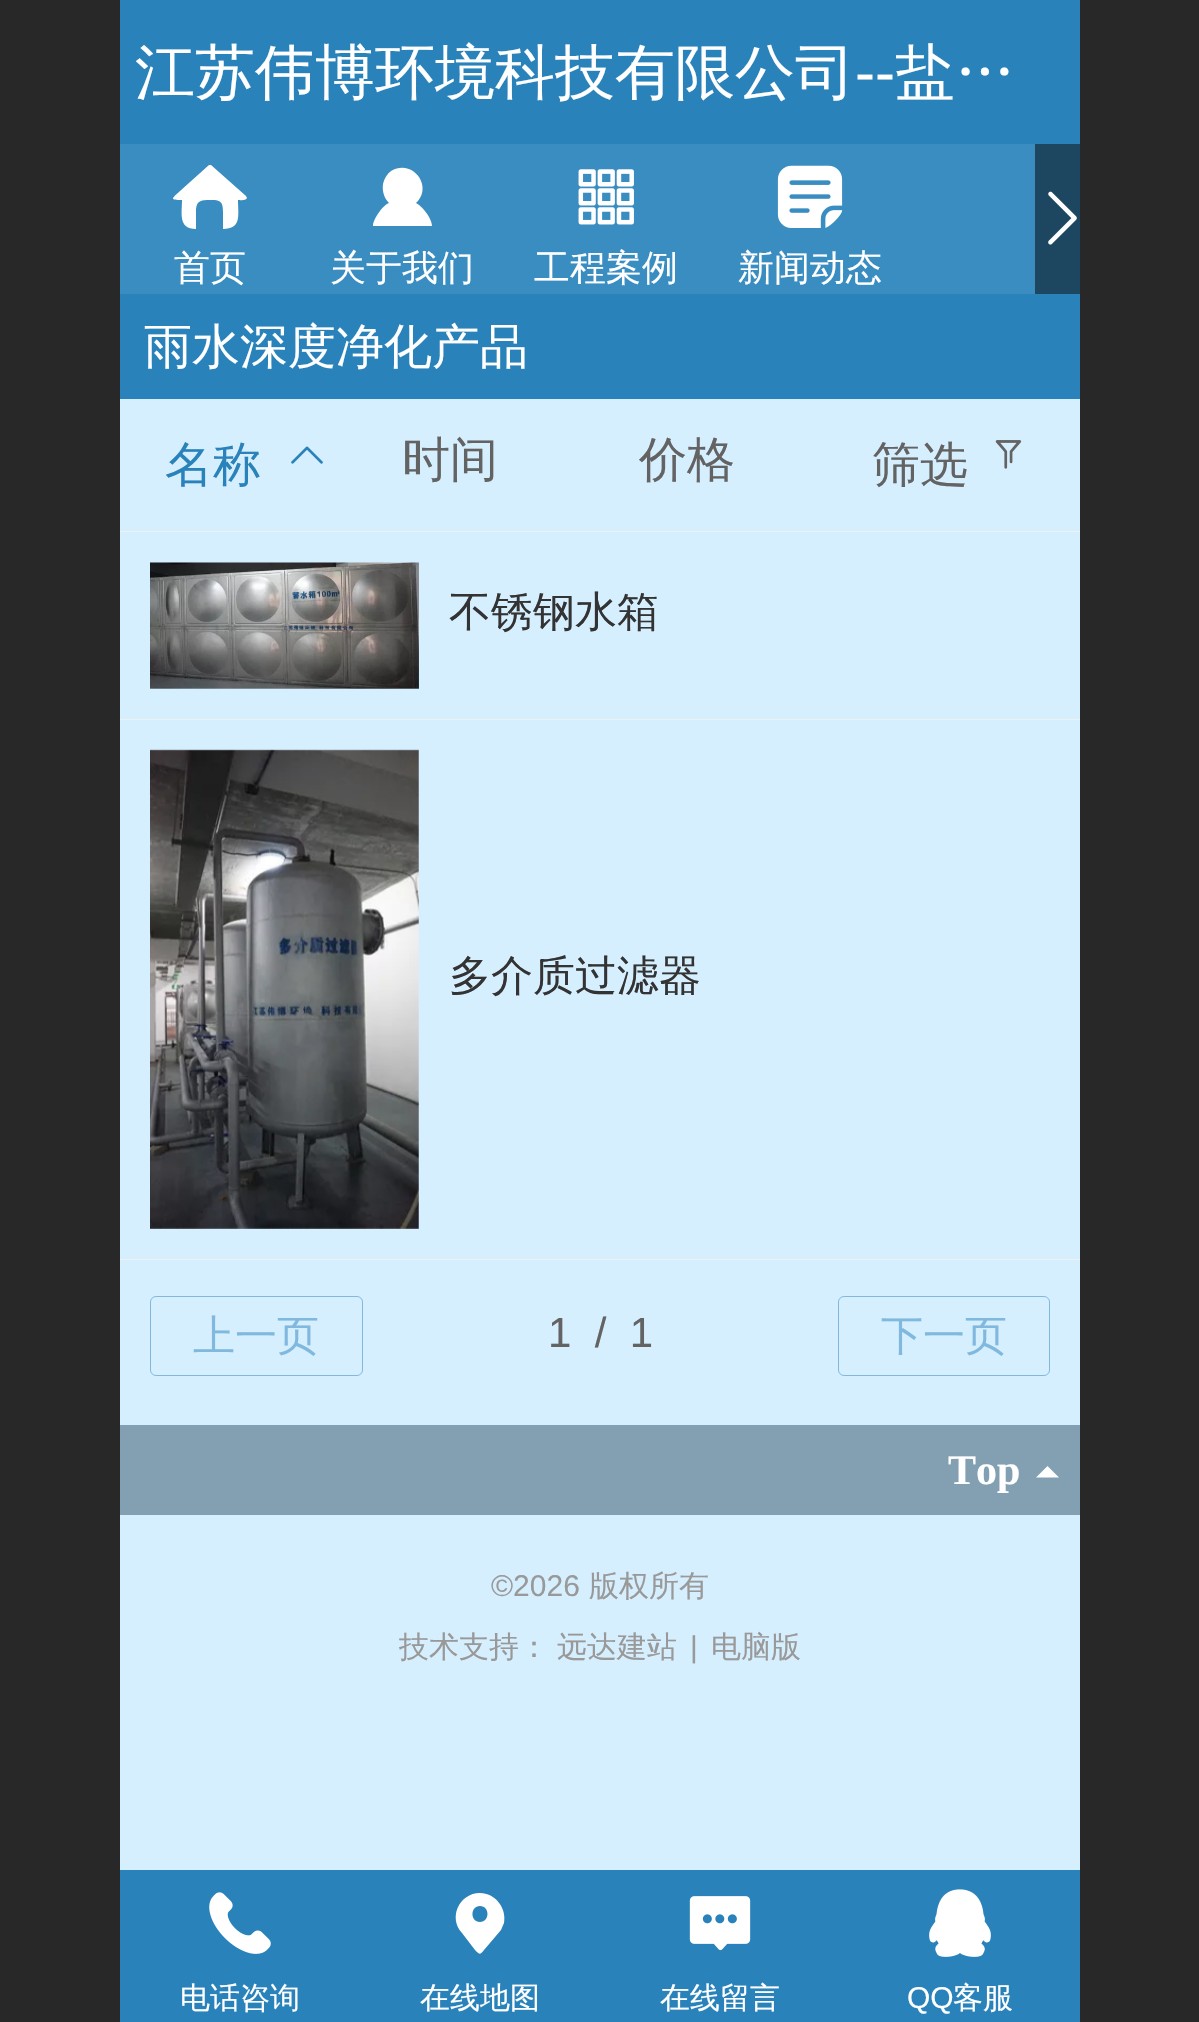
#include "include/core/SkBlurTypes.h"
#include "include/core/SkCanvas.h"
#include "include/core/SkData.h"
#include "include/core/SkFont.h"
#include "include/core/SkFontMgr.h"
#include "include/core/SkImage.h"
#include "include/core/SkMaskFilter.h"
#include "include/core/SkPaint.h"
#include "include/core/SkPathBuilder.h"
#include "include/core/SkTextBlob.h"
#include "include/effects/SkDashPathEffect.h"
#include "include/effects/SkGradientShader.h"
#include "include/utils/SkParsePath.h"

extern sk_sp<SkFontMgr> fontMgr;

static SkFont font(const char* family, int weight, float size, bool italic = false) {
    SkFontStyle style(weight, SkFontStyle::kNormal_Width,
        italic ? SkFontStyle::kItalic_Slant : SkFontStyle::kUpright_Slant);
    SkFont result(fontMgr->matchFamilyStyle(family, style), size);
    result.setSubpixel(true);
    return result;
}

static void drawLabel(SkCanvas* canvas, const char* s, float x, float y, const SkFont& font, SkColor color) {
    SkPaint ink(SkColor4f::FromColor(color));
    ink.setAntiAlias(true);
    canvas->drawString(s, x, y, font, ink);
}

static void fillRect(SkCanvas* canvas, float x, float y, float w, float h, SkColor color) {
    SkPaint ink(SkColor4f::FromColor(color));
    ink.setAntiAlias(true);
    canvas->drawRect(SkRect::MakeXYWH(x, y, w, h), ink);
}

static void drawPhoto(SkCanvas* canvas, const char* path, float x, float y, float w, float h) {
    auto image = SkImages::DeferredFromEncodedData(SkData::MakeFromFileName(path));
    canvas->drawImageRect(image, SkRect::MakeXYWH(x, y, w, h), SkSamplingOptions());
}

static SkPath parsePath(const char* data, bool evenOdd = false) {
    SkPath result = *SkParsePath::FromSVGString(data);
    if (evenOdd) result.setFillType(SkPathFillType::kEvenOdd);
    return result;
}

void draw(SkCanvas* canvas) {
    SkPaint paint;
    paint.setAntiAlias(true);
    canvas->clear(0xFFD6EFFF);
    fillRect(canvas, 0, 0, 120, 2022, 0xFF282828);
    fillRect(canvas, 120, 0, 960, 144, 0xFF2982BA);
    SkFont font1 = font("WenQuanYi Zen Hei", 500, 60);
    drawLabel(canvas, "江苏伟博环境科技有限公司", 135, 93, font1, 0xFFFFFFFF);
    SkFont font2 = font("Liberation Sans", 400, 60);
    drawLabel(canvas, "--", 855, 93, font2, 0xFFFFFFFF);
    drawLabel(canvas, "盐…", 895, 93, font1, 0xFFFFFFFF);
    fillRect(canvas, 120, 144, 915, 150, 0xFF3A8DC1);
    paint.setColor(0xFFFFFFFF);
    canvas->drawPath(parsePath("M246 196L211 165H209L180 191C171 199 170 200 182 200C182 213 178 229 196 229V212C196 201 200 200 210 200C220 200 223 201 223 212V229C242 229 238 215 238 200C240 200 246 201 247 198Z"), paint);
    SkFont font3 = font("WenQuanYi Zen Hei", 500, 36);
    drawLabel(canvas, "首页", 174, 280, font3, 0xFFFFFFFF);
    canvas->drawPath(parsePath("M432 226C432 218 422 206 416 203C434 186 412 158 391 171C387 174 384 179 383 184C382 191 384 198 389 203C383 205 373 219 373 226Z"), paint);
    drawLabel(canvas, "关于我们", 330, 280, font3, 0xFFFFFFFF);
    drawPhoto(canvas, "assets/img1.png", 578, 169, 56, 56);
    drawLabel(canvas, "工程案例", 534, 280, font3, 0xFFFFFFFF);
    drawPhoto(canvas, "assets/img2.png", 777, 165, 66, 63);
    drawLabel(canvas, "新闻动态", 738, 280, font3, 0xFFFFFFFF);
    fillRect(canvas, 1035, 144, 45, 150, 0xFF1D4761);
    drawPhoto(canvas, "assets/img3.png", 1048, 191, 29, 54);
    fillRect(canvas, 120, 294, 960, 105, 0xFF2982BA);
    SkFont font4 = font("WenQuanYi Zen Hei", 500, 48);
    drawLabel(canvas, "雨水深度净化产品", 144, 363, font4, 0xFFFFFFFF);
    drawLabel(canvas, "名称", 165, 481, font4, 0xFF2982BA);
    drawPhoto(canvas, "assets/img4.png", 291, 446, 32, 18);
    drawLabel(canvas, "时间", 402, 476, font4, 0xFF636363);
    drawLabel(canvas, "价格", 639, 476, font4, 0xFF636363);
    drawLabel(canvas, "筛选", 872, 481, font4, 0xFF636363);
    drawPhoto(canvas, "assets/img5.png", 995, 440, 27, 29);
    fillRect(canvas, 120, 531, 960, 1, 0xFFF0F0F0);
    drawPhoto(canvas, "assets/img6.png", 150, 562, 269, 127);
    SkFont font5 = font("WenQuanYi Zen Hei", 500, 42);
    drawLabel(canvas, "不锈钢水箱", 449, 626, font5, 0xFF333333);
    fillRect(canvas, 120, 719, 960, 1, 0xFFF0F0F0);
    drawPhoto(canvas, "assets/img7.png", 150, 749, 269, 480);
    drawLabel(canvas, "多介质过滤器", 449, 990, font5, 0xFF333333);
    fillRect(canvas, 120, 1259, 960, 1, 0xFFF0F0F0);
    paint.setStroke(true);
    paint.setStrokeWidth(1);
    paint.setColor(0xFF80B9DD);
    canvas->drawRoundRect(SkRect::MakeXYWH(150.5f, 1296.5f, 212, 79), 5.5f, 5.5f, paint);
    drawLabel(canvas, "上一页", 193, 1350, font5, 0xFF80B9DD);
    SkFont font6 = font("Liberation Sans", 400, 42);
    drawLabel(canvas, "1  /  1", 548, 1347, font6, 0xFF636363);
    canvas->drawRoundRect(SkRect::MakeXYWH(838.5f, 1296.5f, 211, 79), 5.5f, 5.5f, paint);
    drawLabel(canvas, "下一页", 881, 1350, font5, 0xFF80B9DD);
    fillRect(canvas, 120, 1425, 960, 90, 0xFF83A0B2);
    SkFont font7 = font("Liberation Serif", 700, 42);
    drawLabel(canvas, "Top", 948, 1484, font7, 0xFFFFFFFF);
    paint.setStroke(false);
    paint.setColor(0xFFFFFFFF);
    canvas->drawPath(parsePath("M1059 1477.5H1036L1047.5 1466Z"), paint);
    SkFont font8 = font("Liberation Sans", 400, 30);
    drawLabel(canvas, "©2026", 491, 1596, font8, 0xFF999999);
    SkFont font9 = font("WenQuanYi Zen Hei", 500, 30);
    drawLabel(canvas, "版权所有", 589, 1596, font9, 0xFF999999);
    drawLabel(canvas, "技术支持：", 399, 1657, font9, 0xFF999999);
    drawLabel(canvas, "远达建站", 557, 1657, font9, 0xFF999999);
    drawLabel(canvas, "|", 690, 1657, font8, 0xFF999999);
    drawLabel(canvas, "电脑版", 711, 1657, font9, 0xFF999999);
    fillRect(canvas, 120, 1870, 960, 152, 0xFF2982BA);
    drawPhoto(canvas, "assets/img8.png", 209, 1892, 62, 62);
    drawLabel(canvas, "电话咨询", 180, 2008, font9, 0xFFFFFFFF);
    canvas->drawPath(parsePath("M480 1893C459 1893 448 1918 462 1933L475 1950C480 1955 480 1955 484 1950L501 1930L504 1923C507 1908 495 1893 480 1893ZM480 1922C470 1922 470 1906 480 1906C490 1906 490 1922 480 1922Z"), paint);
    drawLabel(canvas, "在线地图", 420, 2008, font9, 0xFFFFFFFF);
    drawPhoto(canvas, "assets/img9.png", 689, 1896, 62, 55);
    drawLabel(canvas, "在线留言", 660, 2008, font9, 0xFFFFFFFF);
    drawPhoto(canvas, "assets/img10.png", 929, 1889, 62, 68);
    drawLabel(canvas, "QQ", 907, 2008, font8, 0xFFFFFFFF);
    drawLabel(canvas, "客服", 953, 2008, font9, 0xFFFFFFFF);
    fillRect(canvas, 1080, 0, 119, 2022, 0xFF282828);
}
